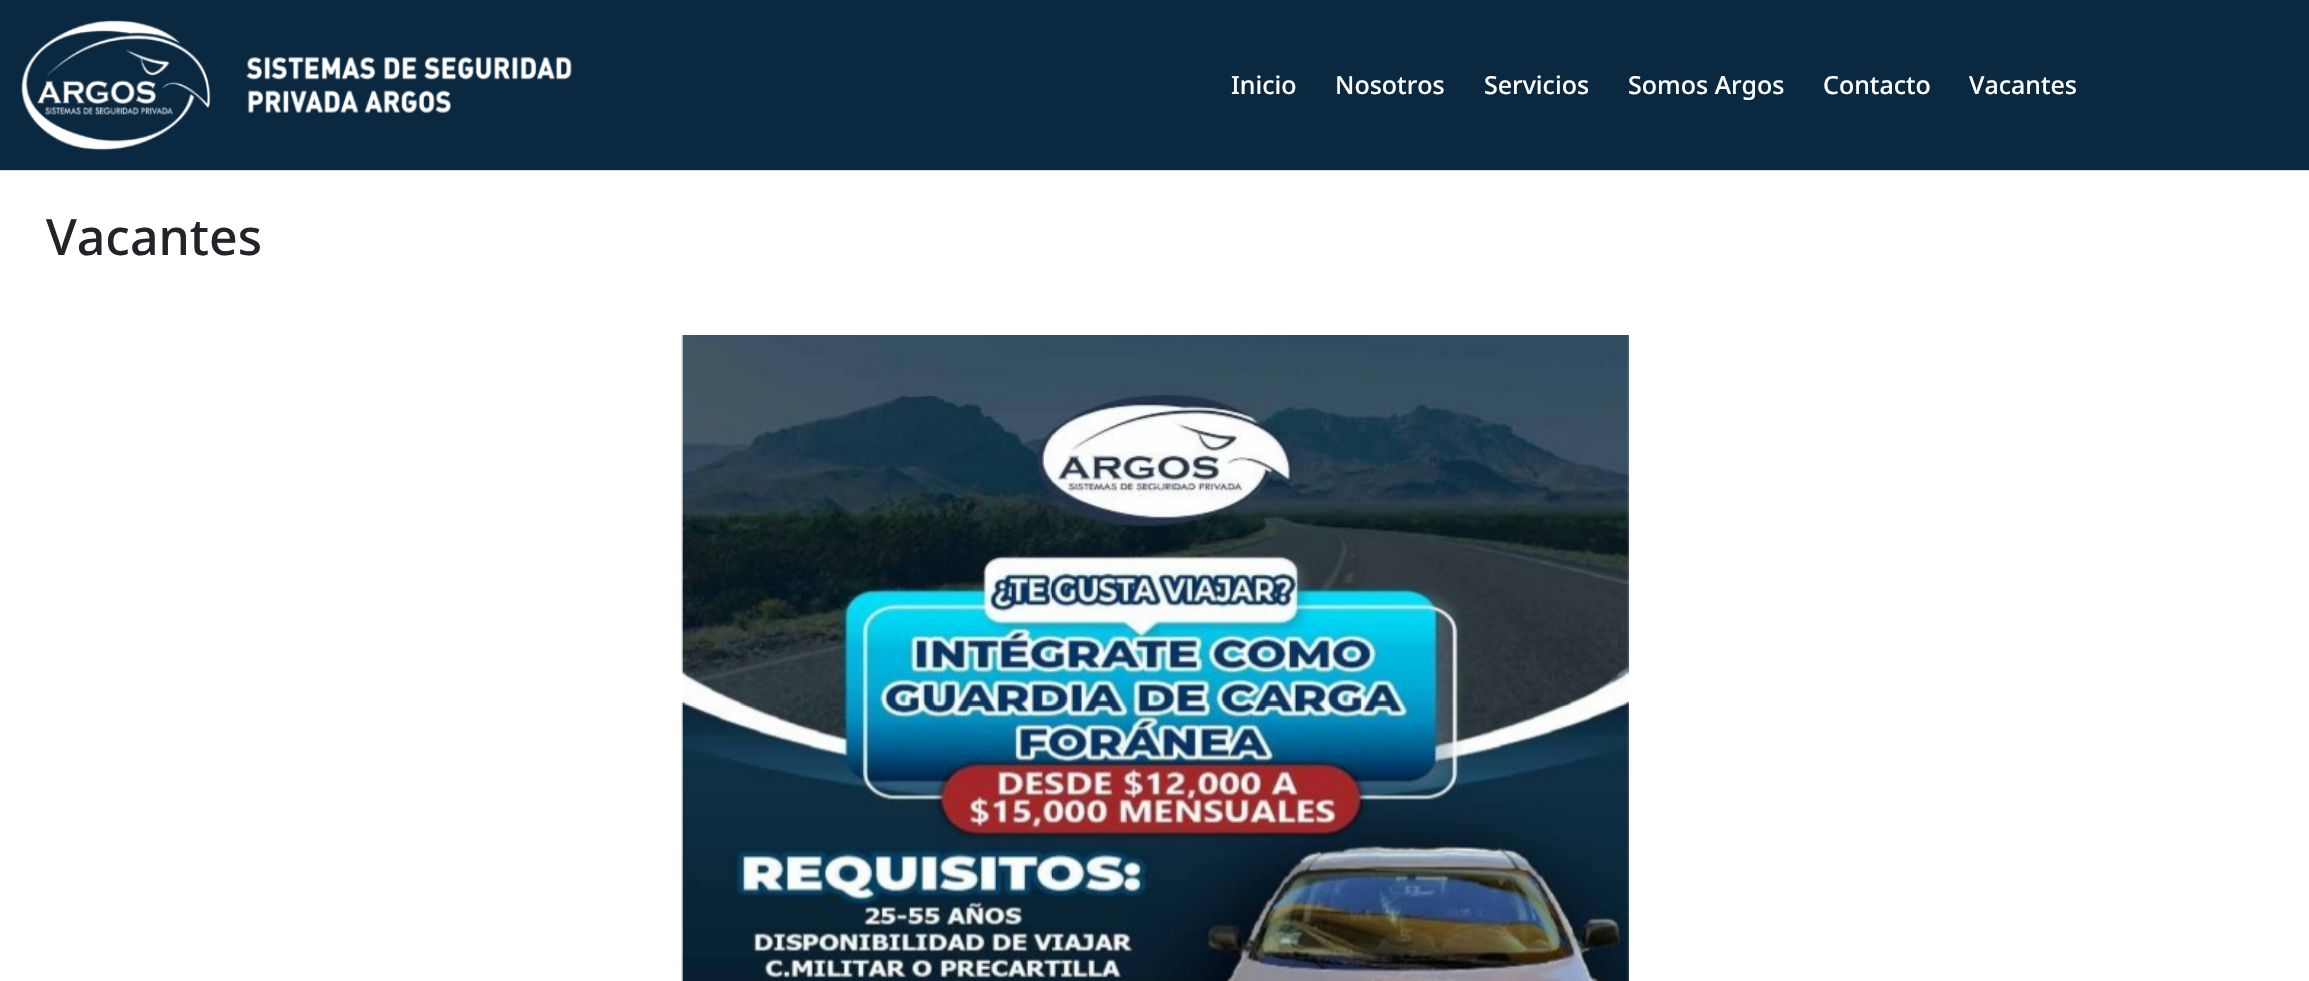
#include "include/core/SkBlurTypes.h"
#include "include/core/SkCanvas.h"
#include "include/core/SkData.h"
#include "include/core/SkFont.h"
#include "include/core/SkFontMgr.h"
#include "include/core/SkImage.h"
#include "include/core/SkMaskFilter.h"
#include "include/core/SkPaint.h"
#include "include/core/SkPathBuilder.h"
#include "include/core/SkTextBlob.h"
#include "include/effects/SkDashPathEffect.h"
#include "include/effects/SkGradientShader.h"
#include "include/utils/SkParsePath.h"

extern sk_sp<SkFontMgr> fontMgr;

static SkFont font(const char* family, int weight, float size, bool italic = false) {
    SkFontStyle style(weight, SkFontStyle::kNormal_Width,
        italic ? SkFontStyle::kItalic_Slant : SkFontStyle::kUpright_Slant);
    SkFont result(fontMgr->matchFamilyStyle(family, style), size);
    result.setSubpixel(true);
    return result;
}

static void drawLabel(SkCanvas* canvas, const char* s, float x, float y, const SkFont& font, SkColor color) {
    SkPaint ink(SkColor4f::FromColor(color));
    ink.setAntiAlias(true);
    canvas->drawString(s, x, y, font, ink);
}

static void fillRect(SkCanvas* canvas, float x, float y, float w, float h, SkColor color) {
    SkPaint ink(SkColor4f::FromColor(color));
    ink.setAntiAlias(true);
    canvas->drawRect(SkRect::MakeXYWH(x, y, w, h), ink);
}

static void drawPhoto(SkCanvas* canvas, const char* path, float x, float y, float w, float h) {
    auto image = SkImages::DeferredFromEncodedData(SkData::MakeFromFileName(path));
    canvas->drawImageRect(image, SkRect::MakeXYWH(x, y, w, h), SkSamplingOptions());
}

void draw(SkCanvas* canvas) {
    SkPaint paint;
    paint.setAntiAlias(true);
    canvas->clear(0xFFFFFFFF);
    fillRect(canvas, 0, 0, 2309, 170, 0xFF0A2941);
    fillRect(canvas, 0, 170, 2309, 1, 0xFFDDDDDD);
    drawPhoto(canvas, "assets/img1.png", 21, 20, 551, 131);
    SkFont font1 = font("Noto Sans", 500, 25);
    drawLabel(canvas, "Inicio", 1231, 94, font1, 0xFFFFFFFF);
    drawLabel(canvas, "Nosotros", 1335, 94, font1, 0xFFFFFFFF);
    drawLabel(canvas, "Servicios", 1484, 94, font1, 0xFFFFFFFF);
    drawLabel(canvas, "Somos Argos", 1628, 94, font1, 0xFFFFFFFF);
    drawLabel(canvas, "Contacto", 1823, 94, font1, 0xFFFFFFFF);
    drawLabel(canvas, "Vacantes", 1969, 94, font1, 0xFFFFFFFF);
    SkFont font2 = font("Noto Sans", 500, 50);
    drawLabel(canvas, "Vacantes", 46, 255, font2, 0xFF212529);
    drawPhoto(canvas, "assets/img2.png", 681, 335, 948, 646);
}
